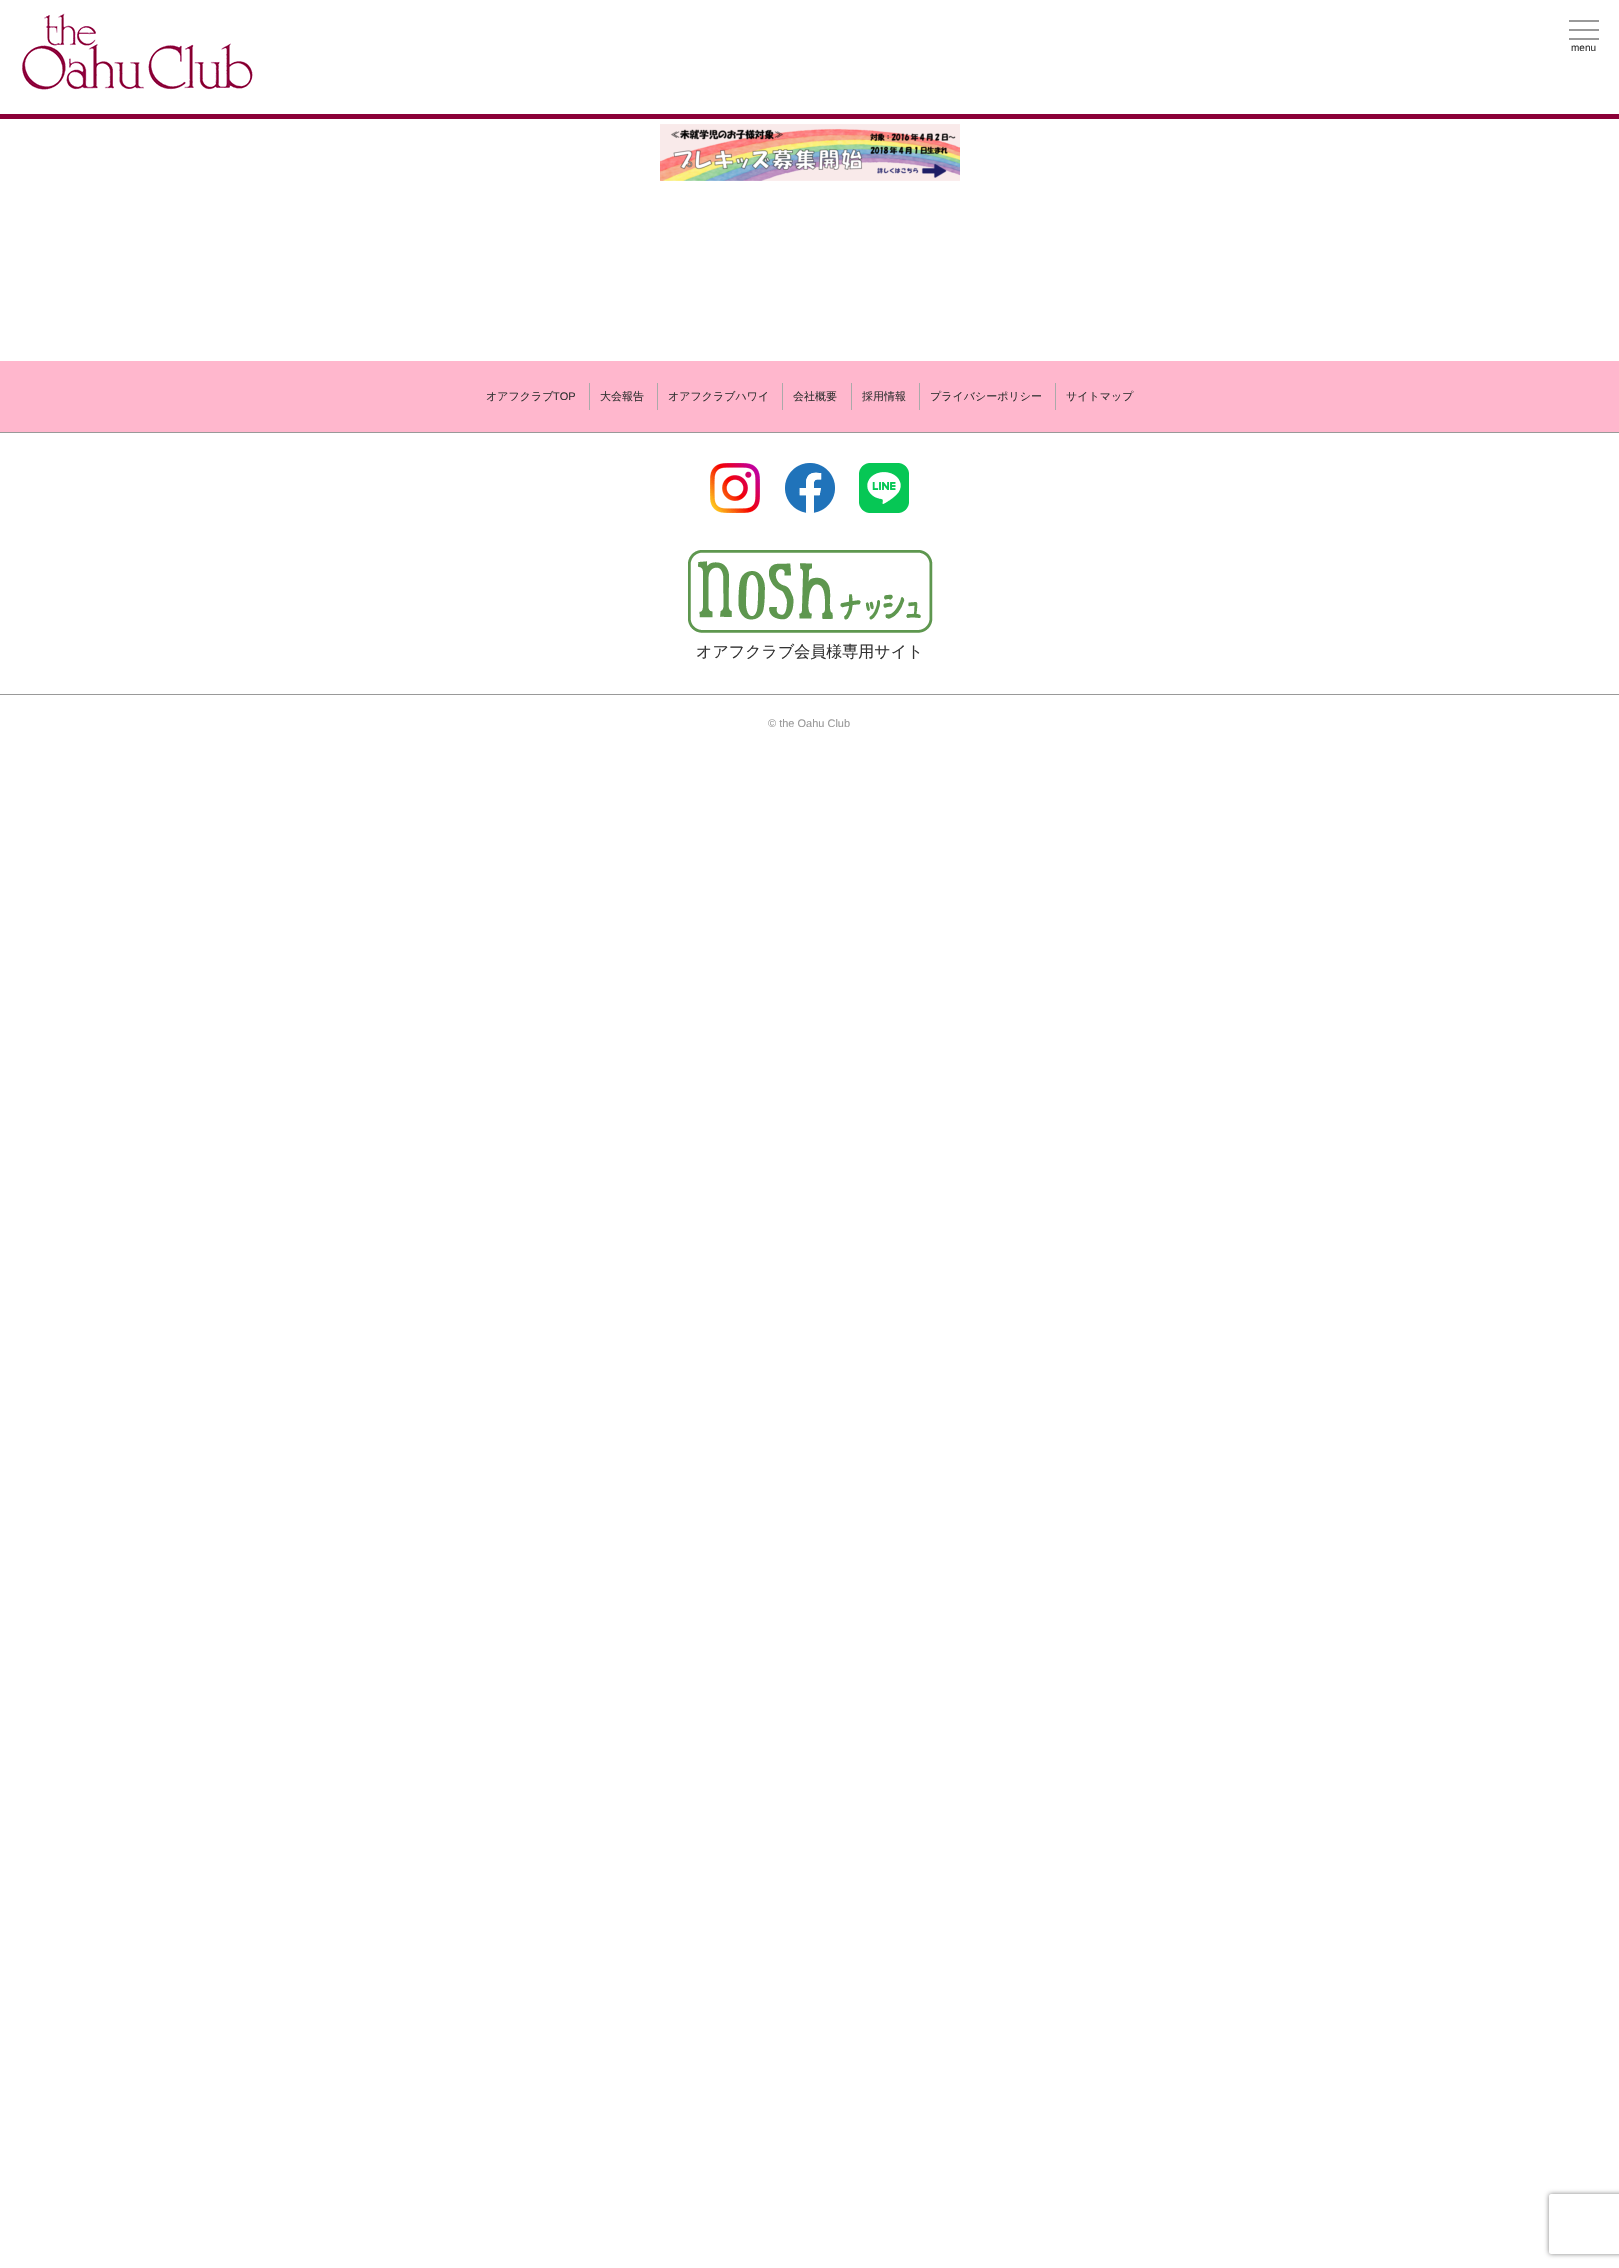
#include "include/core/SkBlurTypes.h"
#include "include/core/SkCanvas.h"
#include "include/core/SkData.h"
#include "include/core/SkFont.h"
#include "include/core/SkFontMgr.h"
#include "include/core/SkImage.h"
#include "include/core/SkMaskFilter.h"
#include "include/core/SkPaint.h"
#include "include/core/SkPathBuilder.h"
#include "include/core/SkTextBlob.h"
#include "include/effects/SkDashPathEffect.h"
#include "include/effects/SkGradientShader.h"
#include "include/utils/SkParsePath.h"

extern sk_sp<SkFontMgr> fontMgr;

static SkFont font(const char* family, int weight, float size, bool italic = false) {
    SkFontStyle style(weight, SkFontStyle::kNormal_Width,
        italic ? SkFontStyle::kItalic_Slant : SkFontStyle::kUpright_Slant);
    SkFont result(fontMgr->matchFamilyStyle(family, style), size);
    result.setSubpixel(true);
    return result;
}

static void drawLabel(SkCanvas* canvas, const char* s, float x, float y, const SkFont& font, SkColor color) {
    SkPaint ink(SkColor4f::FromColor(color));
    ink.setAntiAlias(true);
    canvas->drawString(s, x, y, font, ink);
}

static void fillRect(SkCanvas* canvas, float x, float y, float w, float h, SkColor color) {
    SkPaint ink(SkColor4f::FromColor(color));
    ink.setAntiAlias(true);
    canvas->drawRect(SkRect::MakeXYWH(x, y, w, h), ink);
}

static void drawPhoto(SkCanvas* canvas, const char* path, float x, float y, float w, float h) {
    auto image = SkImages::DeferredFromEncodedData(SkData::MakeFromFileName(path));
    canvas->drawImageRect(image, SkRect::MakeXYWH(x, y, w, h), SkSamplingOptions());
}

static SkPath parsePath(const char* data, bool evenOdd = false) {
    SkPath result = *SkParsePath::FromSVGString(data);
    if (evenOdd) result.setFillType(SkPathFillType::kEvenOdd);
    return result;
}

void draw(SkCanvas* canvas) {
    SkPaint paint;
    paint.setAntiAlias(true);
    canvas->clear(0xFFFFFFFF);
    fillRect(canvas, 0, 114, 1619, 5, 0xFF8B0038);
    drawPhoto(canvas, "assets/img1.png", 22, 13, 231, 77);
    fillRect(canvas, 1569, 20, 30, 2, 0xFF999999);
    fillRect(canvas, 1569, 29, 30, 2, 0xFF999999);
    fillRect(canvas, 1569, 38, 30, 2, 0xFF999999);
    SkFont font1 = font("Liberation Sans", 400, 10);
    drawLabel(canvas, "menu", 1571, 51, font1, 0xFF333333);
    drawPhoto(canvas, "assets/img2.png", 660, 124, 300, 57);
    fillRect(canvas, 0, 361, 1619, 71, 0xFFFFB7CD);
    SkFont font2 = font("WenQuanYi Zen Hei", 500, 11);
    drawLabel(canvas, "オアフクラブ", 486, 400, font2, 0xFF333333);
    SkFont font3 = font("Liberation Sans", 400, 11);
    drawLabel(canvas, "TOP", 553, 400, font3, 0xFF333333);
    fillRect(canvas, 589, 383, 1, 27, 0xFFAAAAAA);
    drawLabel(canvas, "大会報告", 600, 400, font2, 0xFF333333);
    fillRect(canvas, 657, 383, 1, 27, 0xFFAAAAAA);
    drawLabel(canvas, "オアフクラブハワイ", 668, 400, font2, 0xFF333333);
    fillRect(canvas, 782, 383, 1, 27, 0xFFAAAAAA);
    drawLabel(canvas, "会社概要", 793, 400, font2, 0xFF333333);
    fillRect(canvas, 851, 383, 1, 27, 0xFFAAAAAA);
    drawLabel(canvas, "採用情報", 862, 400, font2, 0xFF333333);
    fillRect(canvas, 919, 383, 1, 27, 0xFFAAAAAA);
    drawLabel(canvas, "プライバシーポリシー", 930, 400, font2, 0xFF333333);
    fillRect(canvas, 1055, 383, 1, 27, 0xFFAAAAAA);
    drawLabel(canvas, "サイトマップ", 1066, 400, font2, 0xFF333333);
    fillRect(canvas, 0, 432, 1619, 1, 0xFF999999);
    drawPhoto(canvas, "assets/img3.png", 710, 463, 50, 50);
    drawPhoto(canvas, "assets/img4.png", 785, 463, 50, 50);
    drawPhoto(canvas, "assets/img5.png", 859, 463, 50, 50);
    drawPhoto(canvas, "assets/img6.png", 688, 550, 245, 83);
    SkFont font4 = font("WenQuanYi Zen Hei", 500, 16);
    drawLabel(canvas, "オアフクラブ会員様専用サイト", 696, 657, font4, 0xFF333333);
    fillRect(canvas, 0, 694, 1619, 1, 0xFF999999);
    drawLabel(canvas, "© the Oahu Club", 768, 727, font3, 0xFF999999);
    canvas->save();
    canvas->clipPath(parsePath("M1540 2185H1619V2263H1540ZM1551 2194H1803C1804 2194 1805 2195 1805 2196V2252C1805 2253 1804 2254 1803 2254H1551C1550 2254 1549 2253 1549 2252V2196C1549 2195 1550 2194 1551 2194Z", true), true);
    paint.setColor(0xFF808080);
    paint.setMaskFilter(SkMaskFilter::MakeBlur(kNormal_SkBlurStyle, 2.5f));
    canvas->drawRoundRect(SkRect::MakeXYWH(1549, 2194, 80, 60), 2, 2, paint);
    paint.setMaskFilter(nullptr);
    canvas->restore();
}
